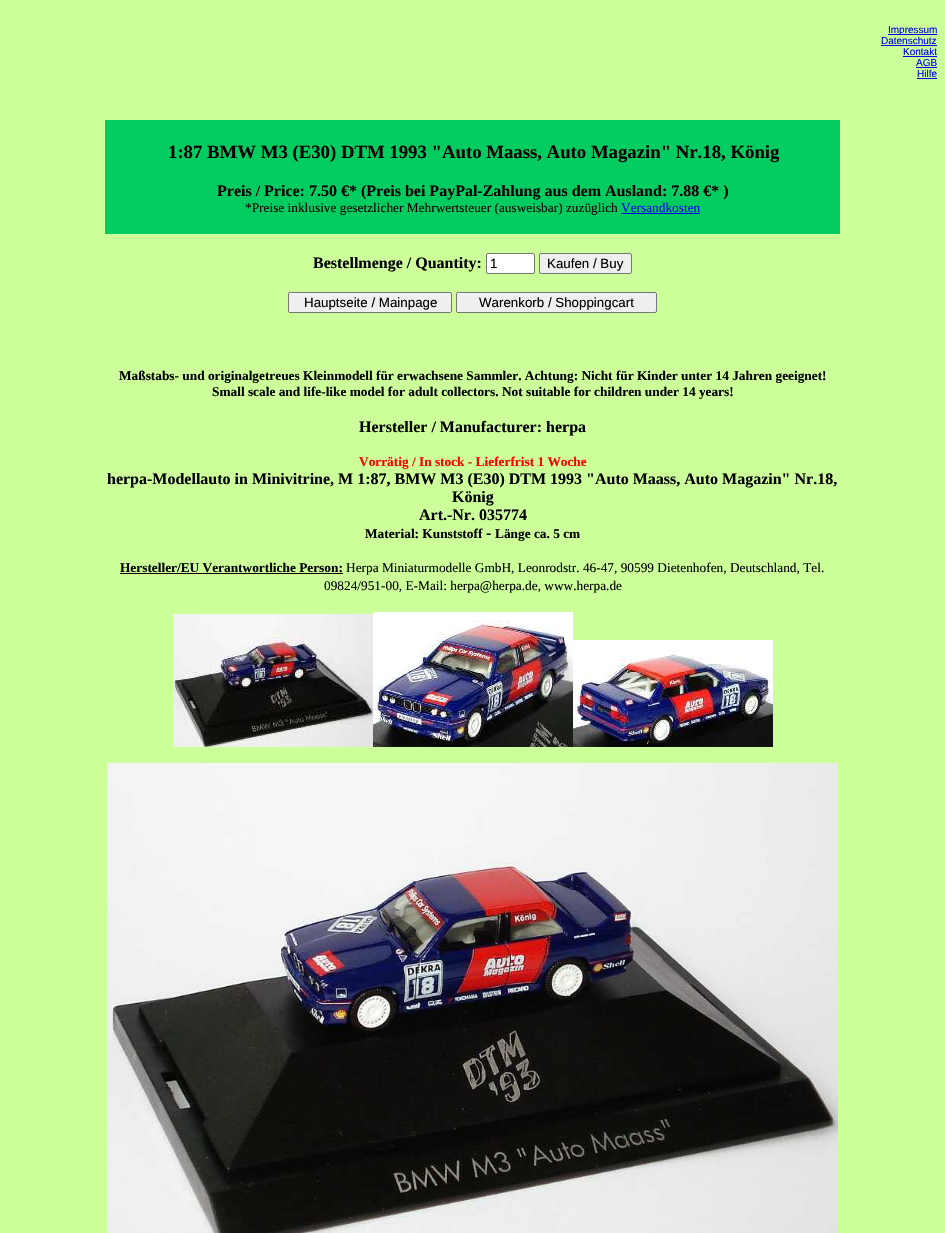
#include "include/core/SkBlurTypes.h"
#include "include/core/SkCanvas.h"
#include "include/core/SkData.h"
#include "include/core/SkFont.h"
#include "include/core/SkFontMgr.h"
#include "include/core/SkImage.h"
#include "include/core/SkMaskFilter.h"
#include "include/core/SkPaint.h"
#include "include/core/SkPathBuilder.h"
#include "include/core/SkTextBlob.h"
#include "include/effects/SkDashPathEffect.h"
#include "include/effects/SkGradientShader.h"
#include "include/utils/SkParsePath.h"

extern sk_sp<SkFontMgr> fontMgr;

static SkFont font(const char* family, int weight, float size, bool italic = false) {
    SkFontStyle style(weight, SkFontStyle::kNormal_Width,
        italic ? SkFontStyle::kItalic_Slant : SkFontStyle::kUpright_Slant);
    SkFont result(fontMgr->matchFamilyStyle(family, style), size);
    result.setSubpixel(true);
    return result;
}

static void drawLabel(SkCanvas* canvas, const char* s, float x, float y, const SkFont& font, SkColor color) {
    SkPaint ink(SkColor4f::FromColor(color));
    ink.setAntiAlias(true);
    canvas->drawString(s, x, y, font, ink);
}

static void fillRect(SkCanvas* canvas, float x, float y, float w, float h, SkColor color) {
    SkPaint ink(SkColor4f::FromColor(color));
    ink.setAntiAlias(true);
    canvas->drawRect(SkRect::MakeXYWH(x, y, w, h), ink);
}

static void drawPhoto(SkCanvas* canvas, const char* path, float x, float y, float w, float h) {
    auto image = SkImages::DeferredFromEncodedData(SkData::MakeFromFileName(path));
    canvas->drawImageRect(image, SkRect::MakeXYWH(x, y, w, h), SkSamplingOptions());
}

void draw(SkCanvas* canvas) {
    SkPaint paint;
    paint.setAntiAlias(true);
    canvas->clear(0xFFCCFF99);
    fillRect(canvas, 888, 34, 49, 1, 0xFF0000EE);
    SkFont font1 = font("Liberation Sans", 400, 10);
    drawLabel(canvas, "Impressum", 888, 33, font1, 0xFF0000EE);
    drawLabel(canvas, "Datenschutz", 881, 44, font1, 0xFF0000EE);
    fillRect(canvas, 881, 45, 56, 1, 0xFF0000EE);
    drawLabel(canvas, "Kontakt", 903, 55, font1, 0xFF0000EE);
    fillRect(canvas, 903, 56, 34, 1, 0xFF0000EE);
    drawLabel(canvas, "AGB", 916, 66, font1, 0xFF0000EE);
    fillRect(canvas, 916, 67, 21, 1, 0xFF0000EE);
    drawLabel(canvas, "Hilfe", 917, 77, font1, 0xFF0000EE);
    fillRect(canvas, 917, 78, 20, 1, 0xFF0000EE);
    fillRect(canvas, 105, 120, 735, 114, 0xFF03CC60);
    SkFont font2 = font("Liberation Serif", 700, 18.75f);
    drawLabel(canvas, "1:87 BMW M3 (E30) DTM 1993 \"Auto Maass, Auto Magazin\" Nr.18, König", 168, 158, font2, 0xFF000000);
    SkFont font3 = font("Liberation Serif", 700, 16);
    drawLabel(canvas, "Preis / Price: 7.50 €* (Preis bei PayPal-Zahlung aus dem Ausland: 7.88 €* )", 217, 196, font3, 0xFF000000);
    SkFont font4 = font("Liberation Serif", 400, 13.33f);
    drawLabel(canvas, "*Preise inklusive gesetzlicher Mehrwertsteuer (ausweisbar) zuzüglich", 245, 212, font4, 0xFF000000);
    drawLabel(canvas, "Versandkosten", 621, 212, font4, 0xFF0000EE);
    fillRect(canvas, 621, 213, 79, 1, 0xFF0000EE);
    drawLabel(canvas, "Bestellmenge / Quantity:", 313, 268, font3, 0xFF000000);
    paint.setColor(0xFFFFFFFF);
    canvas->drawRoundRect(SkRect::MakeXYWH(486.5f, 253.5f, 48, 20), 1.5f, 1.5f, paint);
    paint.setStroke(true);
    paint.setStrokeWidth(1);
    paint.setColor(0xFF767676);
    canvas->drawRoundRect(SkRect::MakeXYWH(486.5f, 253.5f, 48, 20), 1.5f, 1.5f, paint);
    SkFont font5 = font("Liberation Sans", 400, 13.33f);
    drawLabel(canvas, "1", 490, 268, font5, 0xFF000000);
    paint.setStroke(false);
    paint.setColor(0xFFEFEFEF);
    canvas->drawRoundRect(SkRect::MakeXYWH(539.5f, 253.5f, 92, 20), 1.5f, 1.5f, paint);
    paint.setStroke(true);
    paint.setColor(0xFF767676);
    canvas->drawRoundRect(SkRect::MakeXYWH(539.5f, 253.5f, 92, 20), 1.5f, 1.5f, paint);
    drawLabel(canvas, "Kaufen / Buy", 547, 268, font5, 0xFF000000);
    paint.setStroke(false);
    paint.setColor(0xFFEFEFEF);
    canvas->drawRoundRect(SkRect::MakeXYWH(288.5f, 292.5f, 163, 20), 1.5f, 1.5f, paint);
    paint.setStroke(true);
    paint.setColor(0xFF767676);
    canvas->drawRoundRect(SkRect::MakeXYWH(288.5f, 292.5f, 163, 20), 1.5f, 1.5f, paint);
    drawLabel(canvas, "Hauptseite / Mainpage", 304, 307, font5, 0xFF000000);
    paint.setStroke(false);
    paint.setColor(0xFFEFEFEF);
    canvas->drawRoundRect(SkRect::MakeXYWH(456.5f, 292.5f, 200, 20), 1.5f, 1.5f, paint);
    paint.setStroke(true);
    paint.setColor(0xFF767676);
    canvas->drawRoundRect(SkRect::MakeXYWH(456.5f, 292.5f, 200, 20), 1.5f, 1.5f, paint);
    drawLabel(canvas, "Warenkorb / Shoppingcart", 479, 307, font5, 0xFF000000);
    SkFont font6 = font("Liberation Serif", 700, 13.33f);
    drawLabel(canvas, "Maßstabs- und originalgetreues Kleinmodell für erwachsene Sammler. Achtung: Nicht für Kinder unter 14 Jahren geeignet!", 119, 380, font6, 0xFF000000);
    drawLabel(canvas, "Small scale and life-like model for adult collectors. Not suitable for children under 14 years!", 212, 396, font6, 0xFF000000);
    drawLabel(canvas, "Hersteller / Manufacturer: herpa", 359, 432, font3, 0xFF000000);
    drawLabel(canvas, "Vorrätig / In stock - Lieferfrist 1 Woche", 359, 466, font6, 0xFFFF0000);
    drawLabel(canvas, "herpa-Modellauto in Minivitrine, M 1:87, BMW M3 (E30) DTM 1993 \"Auto Maass, Auto Magazin\" Nr.18,", 107, 484, font3, 0xFF000000);
    drawLabel(canvas, "König", 452, 502, font3, 0xFF000000);
    drawLabel(canvas, "Art.-Nr. 035774", 419, 520, font3, 0xFF000000);
    drawLabel(canvas, "Material: Kunststoff", 365, 538, font6, 0xFF000000);
    drawLabel(canvas, "-", 486, 538, font3, 0xFF000000);
    drawLabel(canvas, "Länge ca. 5 cm", 495, 538, font6, 0xFF000000);
    drawLabel(canvas, "Hersteller/EU Verantwortliche Person:", 120, 572, font6, 0xFF000000);
    fillRect(canvas, 120, 573, 223, 1, 0xFF000000);
    drawLabel(canvas, "Herpa Miniaturmodelle GmbH, Leonrodstr. 46-47, 90599 Dietenhofen, Deutschland, Tel.", 346, 572, font4, 0xFF000000);
    drawLabel(canvas, "09824/951-00, E-Mail: herpa@herpa.de, www.herpa.de", 324, 590, font4, 0xFF000000);
    drawPhoto(canvas, "assets/img1.png", 173, 614, 200, 133);
    drawPhoto(canvas, "assets/img2.png", 373, 612, 200, 135);
    drawPhoto(canvas, "assets/img3.png", 573, 640, 200, 107);
    drawPhoto(canvas, "assets/img4.png", 107, 763, 731, 470);
}
